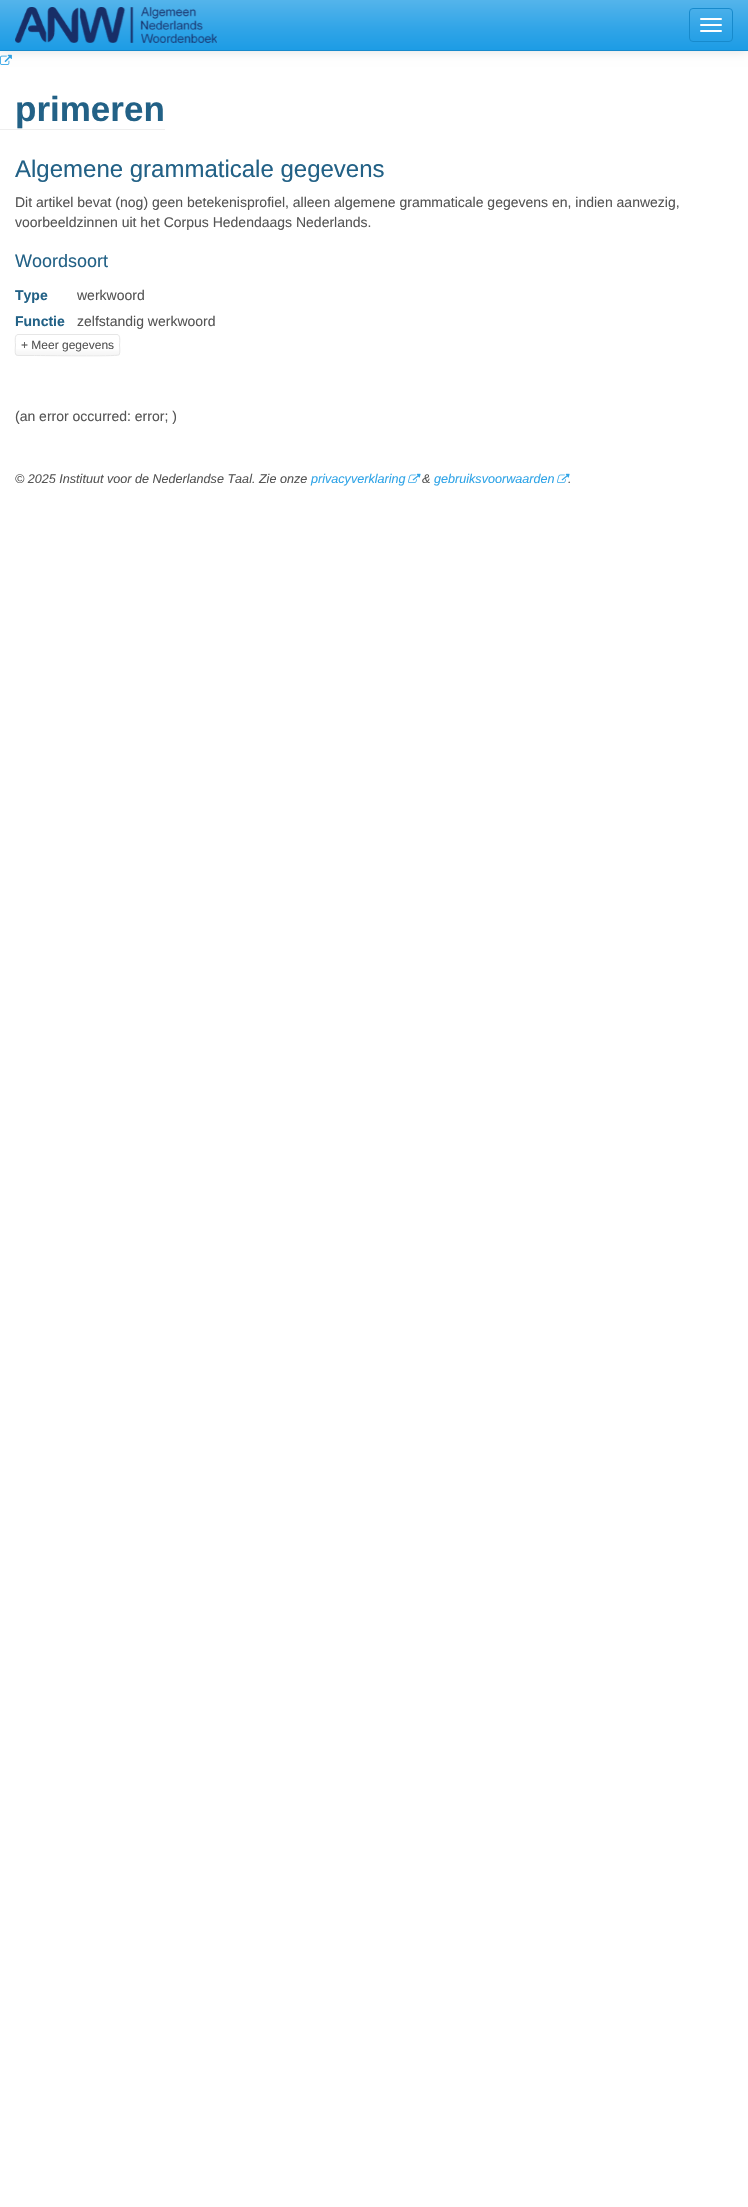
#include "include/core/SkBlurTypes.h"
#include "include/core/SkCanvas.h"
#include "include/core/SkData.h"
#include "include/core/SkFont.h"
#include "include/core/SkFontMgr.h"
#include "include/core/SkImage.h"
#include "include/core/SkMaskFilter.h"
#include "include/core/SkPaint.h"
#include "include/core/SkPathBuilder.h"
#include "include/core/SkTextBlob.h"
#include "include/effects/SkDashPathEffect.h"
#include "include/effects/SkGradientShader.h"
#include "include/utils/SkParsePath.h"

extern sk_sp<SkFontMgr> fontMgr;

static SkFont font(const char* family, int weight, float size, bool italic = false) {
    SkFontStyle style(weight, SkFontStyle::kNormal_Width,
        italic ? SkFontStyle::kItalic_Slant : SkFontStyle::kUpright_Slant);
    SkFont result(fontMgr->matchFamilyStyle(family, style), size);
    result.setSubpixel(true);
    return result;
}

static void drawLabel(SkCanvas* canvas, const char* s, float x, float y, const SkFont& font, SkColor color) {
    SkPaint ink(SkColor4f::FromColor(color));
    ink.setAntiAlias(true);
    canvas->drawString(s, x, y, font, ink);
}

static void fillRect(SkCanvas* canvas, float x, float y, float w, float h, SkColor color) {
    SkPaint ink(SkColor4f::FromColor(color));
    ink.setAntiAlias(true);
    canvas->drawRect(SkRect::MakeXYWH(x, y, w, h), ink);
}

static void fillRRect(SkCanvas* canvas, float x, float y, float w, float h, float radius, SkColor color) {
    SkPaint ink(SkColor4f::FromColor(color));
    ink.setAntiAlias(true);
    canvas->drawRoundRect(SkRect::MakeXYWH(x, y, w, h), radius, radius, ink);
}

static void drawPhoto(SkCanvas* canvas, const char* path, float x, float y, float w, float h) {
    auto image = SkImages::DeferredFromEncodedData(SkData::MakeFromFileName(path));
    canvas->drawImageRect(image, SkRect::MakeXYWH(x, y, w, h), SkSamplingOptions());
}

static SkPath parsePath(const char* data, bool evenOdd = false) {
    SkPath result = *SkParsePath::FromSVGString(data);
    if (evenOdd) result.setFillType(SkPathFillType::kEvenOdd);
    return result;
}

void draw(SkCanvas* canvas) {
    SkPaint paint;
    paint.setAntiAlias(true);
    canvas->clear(0xFFFFFFFF);
    drawPhoto(canvas, "assets/img2.png", 0, 54, 12, 11);
    paint.setColor(0x1A000000);
    paint.setMaskFilter(SkMaskFilter::MakeBlur(kNormal_SkBlurStyle, 5));
    canvas->drawRect(SkRect::MakeXYWH(0, 1, 748, 51), paint);
    paint.setMaskFilter(nullptr);
    {
        const SkColor colors[] = {0xFF54B4EB, 0xFF2FA4E7, 0xFF1D9CE5};
        const float stops[] = {0, 0.6f, 1};
        const SkPoint ends[] = {{374, 0}, {374, 50}};
        paint.setShader(SkGradientShader::MakeLinear(ends, colors, stops, 3, SkTileMode::kClamp));
        paint.setAlpha(255);
    }
    canvas->drawRect(SkRect::MakeXYWH(0, 0, 748, 50), paint);
    fillRect(canvas, 0, 50, 748, 1, 0xFF178ACC);
    drawPhoto(canvas, "assets/img1.png", 15, 7, 202, 36);
    paint.setStroke(true);
    paint.setStrokeWidth(1);
    paint.setShader(nullptr);
    paint.setColor(0xFF178ACC);
    canvas->drawRoundRect(SkRect::MakeXYWH(689.5f, 8.5f, 43, 33), 3.5f, 3.5f, paint);
    fillRRect(canvas, 700, 18, 22, 2, 1, 0xFFFFFFFF);
    fillRRect(canvas, 700, 24, 22, 2, 1, 0xFFFFFFFF);
    fillRRect(canvas, 700, 30, 22, 2, 1, 0xFFFFFFFF);
    fillRect(canvas, 0, 129, 165, 1, 0xFFEEEEEE);
    SkFont font1 = font("Liberation Sans", 700, 35);
    drawLabel(canvas, "primeren", 15, 121, font1, 0xFF226186);
    SkFont font2 = font("Liberation Sans", 400, 24);
    drawLabel(canvas, "Algemene grammaticale gegevens", 15, 177, font2, 0xFF226186);
    SkFont font3 = font("Liberation Sans", 400, 14);
    drawLabel(canvas, "Dit artikel bevat (nog) geen betekenisprofiel, alleen algemene grammaticale gegevens en, indien aanwezig,", 15, 207, font3, 0xFF555555);
    drawLabel(canvas, "voorbeeldzinnen uit het Corpus Hedendaags Nederlands.", 15, 227, font3, 0xFF555555);
    SkFont font4 = font("Liberation Sans", 400, 18);
    drawLabel(canvas, "Woordsoort", 15, 267, font4, 0xFF226186);
    SkFont font5 = font("Liberation Sans", 700, 14);
    drawLabel(canvas, "Type", 15, 300, font5, 0xFF226186);
    drawLabel(canvas, "werkwoord", 77, 300, font3, 0xFF555555);
    drawLabel(canvas, "Functie", 15, 326, font5, 0xFF226186);
    drawLabel(canvas, "zelfstandig werkwoord", 77, 326, font3, 0xFF555555);
    paint.setStroke(false);
    {
        const SkColor colors[] = {0xFFFFFFFF, 0xFFFFFFFF, 0xFFF5F5F5};
        const float stops[] = {0, 0.6f, 1};
        const SkPoint ends[] = {{68, 335}, {68, 355}};
        paint.setShader(SkGradientShader::MakeLinear(ends, colors, stops, 3, SkTileMode::kClamp));
        paint.setAlpha(255);
    }
    canvas->drawRect(SkRect::MakeXYWH(16, 349, 103, 6), paint);
    paint.setStroke(true);
    paint.setShader(nullptr);
    paint.setColor(0xFFE6E6E6);
    canvas->drawPath(parsePath("M119 355H118.5C116.5 356.5 43 355.5 34.5 355.5H18L16 355"), paint);
    canvas->drawPath(parsePath("M16 355C14.5 353 15.5 347 15.5 345C15.5 343 14 334.5 18 334.5H117C121 334.5 119.5 343 119.5 345C119.5 347 120.5 353 119 355"), paint);
    SkFont font6 = font("Liberation Sans", 400, 12);
    drawLabel(canvas, "+ Meer gegevens", 21, 349, font6, 0xFF555555);
    drawLabel(canvas, "(an error occurred: error; )", 15, 421, font3, 0xFF555555);
    SkFont font7 = font("Liberation Sans", 400, 12.6f, true);
    drawLabel(canvas, "© 2025 Instituut voor de Nederlandse Taal. Zie onze", 15, 483, font7, 0xFF555555);
    drawLabel(canvas, "privacyverklaring", 311, 483, font7, 0xFF2FA4E7);
    drawPhoto(canvas, "assets/img3.png", 408, 473, 13, 10);
    drawLabel(canvas, "&", 422, 483, font7, 0xFF555555);
    drawLabel(canvas, "gebruiksvoorwaarden", 434, 483, font7, 0xFF2FA4E7);
    drawPhoto(canvas, "assets/img3.png", 557, 473, 13, 10);
    drawLabel(canvas, ".", 568, 483, font7, 0xFF555555);
}
